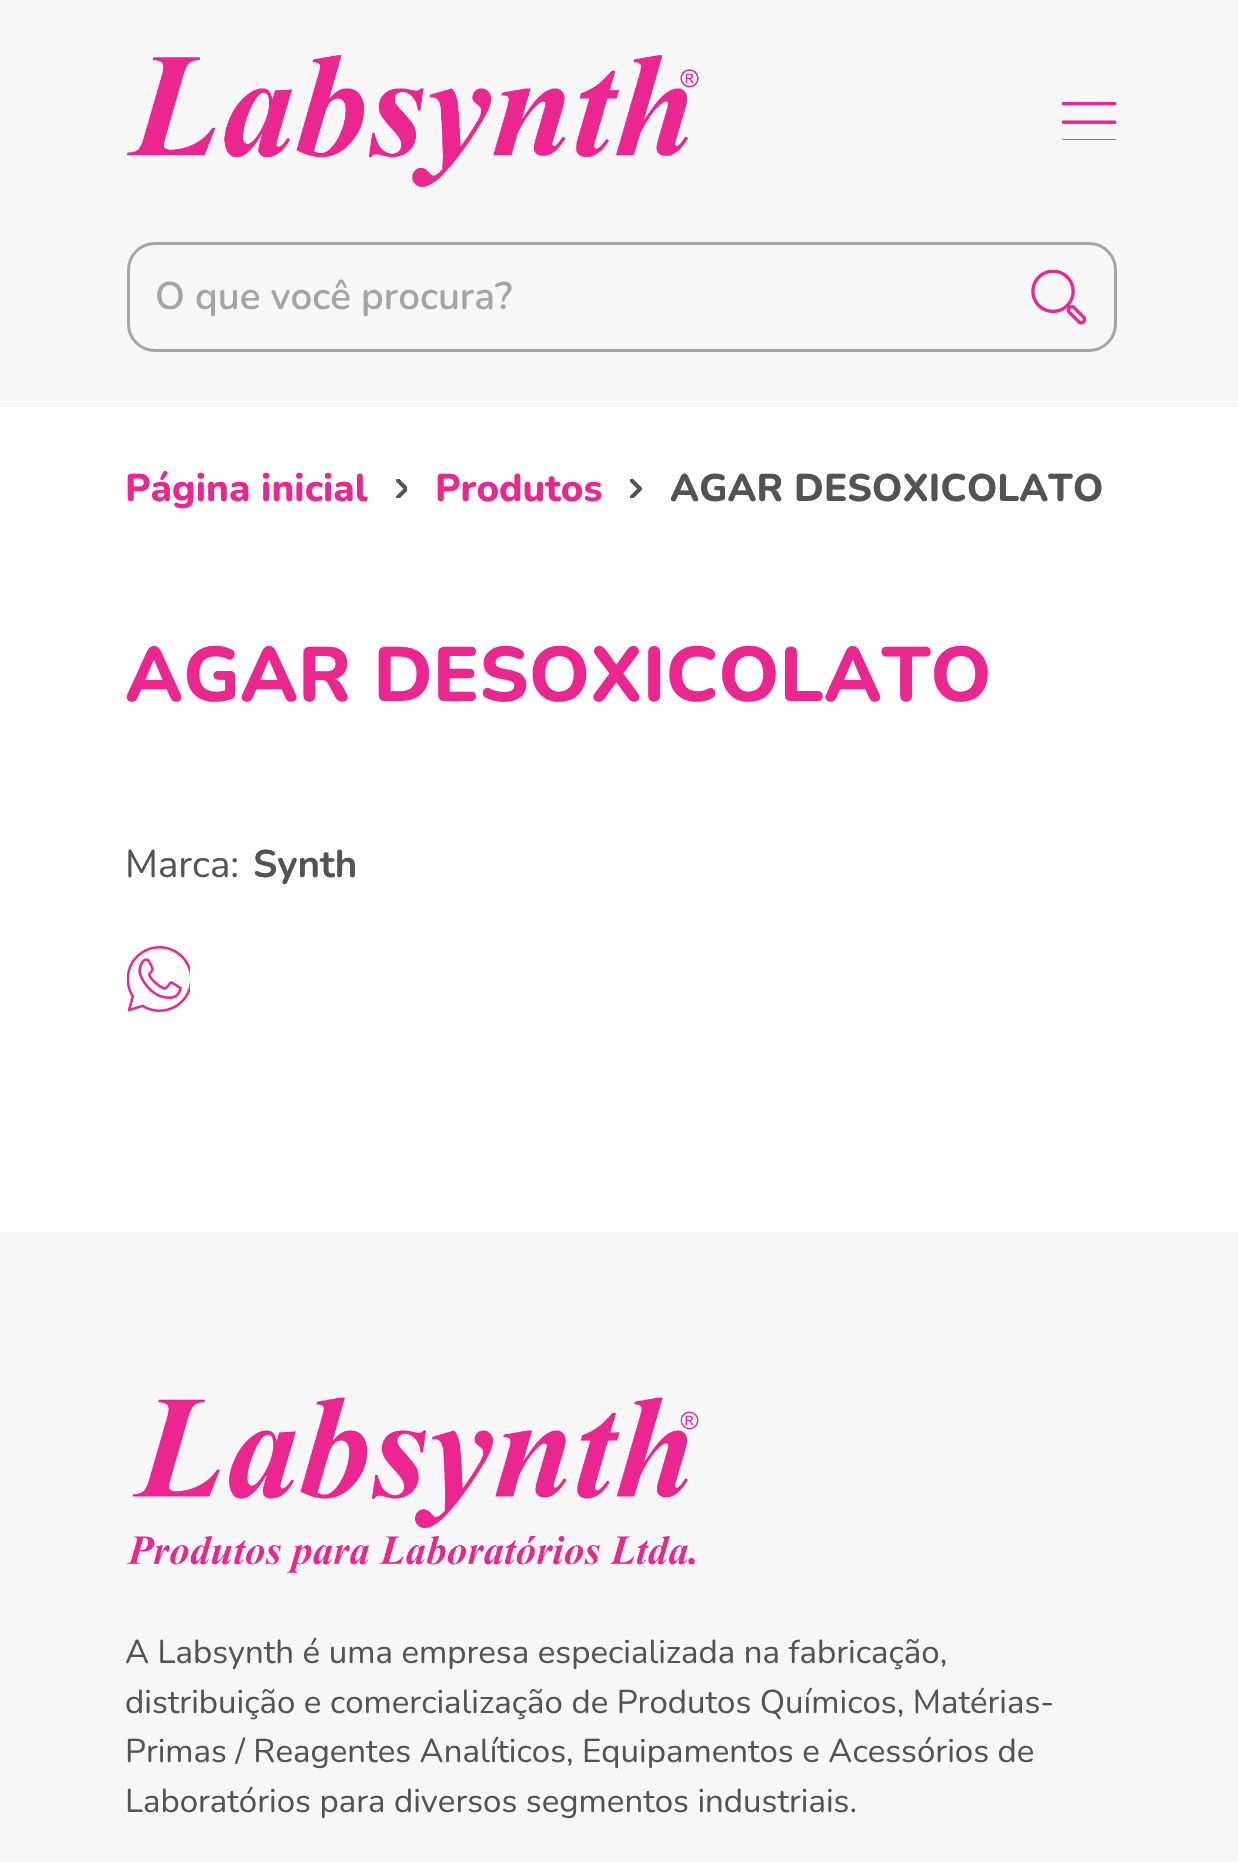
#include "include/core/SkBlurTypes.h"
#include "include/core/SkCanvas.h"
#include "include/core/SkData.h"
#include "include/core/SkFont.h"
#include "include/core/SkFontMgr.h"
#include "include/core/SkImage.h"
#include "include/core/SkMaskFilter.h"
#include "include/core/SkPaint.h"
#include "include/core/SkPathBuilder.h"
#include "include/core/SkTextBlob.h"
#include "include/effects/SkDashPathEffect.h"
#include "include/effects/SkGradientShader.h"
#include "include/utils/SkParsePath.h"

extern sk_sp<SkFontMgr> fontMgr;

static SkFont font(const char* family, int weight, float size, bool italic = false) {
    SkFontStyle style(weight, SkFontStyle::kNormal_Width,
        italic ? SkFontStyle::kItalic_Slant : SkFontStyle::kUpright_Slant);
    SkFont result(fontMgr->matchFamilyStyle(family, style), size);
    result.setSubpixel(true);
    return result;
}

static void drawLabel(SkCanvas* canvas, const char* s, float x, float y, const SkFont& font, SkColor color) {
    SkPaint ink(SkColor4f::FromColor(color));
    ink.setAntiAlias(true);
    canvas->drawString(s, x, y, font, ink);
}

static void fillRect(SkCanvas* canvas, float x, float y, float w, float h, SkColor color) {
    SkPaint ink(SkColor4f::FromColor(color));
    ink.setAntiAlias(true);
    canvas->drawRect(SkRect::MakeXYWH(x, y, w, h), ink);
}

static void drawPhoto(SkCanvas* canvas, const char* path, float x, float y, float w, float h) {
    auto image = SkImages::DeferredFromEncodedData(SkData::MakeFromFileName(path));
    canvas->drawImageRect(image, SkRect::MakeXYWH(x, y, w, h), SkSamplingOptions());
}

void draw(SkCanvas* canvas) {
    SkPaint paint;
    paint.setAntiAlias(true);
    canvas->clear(0xFFFFFFFF);
    fillRect(canvas, 0, 0, 1238, 407, 0xFFF7F7F7);
    drawPhoto(canvas, "assets/img1.png", 126, 55, 573, 132);
    drawPhoto(canvas, "assets/img2.png", 1062, 102, 55, 38);
    paint.setStroke(true);
    paint.setStrokeWidth(3);
    paint.setColor(0xFFA4A4A4);
    canvas->drawRoundRect(SkRect::MakeXYWH(128.5f, 243.5f, 987, 107), 26.5f, 26.5f, paint);
    SkFont font1 = font("Nunito", 600, 38.5f);
    drawLabel(canvas, "O que você procura?", 155, 309, font1, 0xFFA4A4A4);
    drawPhoto(canvas, "assets/img3.png", 1031, 270, 55, 55);
    SkFont font2 = font("Nunito", 800, 38.5f);
    drawLabel(canvas, "Página inicial", 125, 501, font2, 0xFFEC268F);
    drawPhoto(canvas, "assets/img4.png", 396, 479, 11, 19);
    drawLabel(canvas, "Produtos", 435, 501, font2, 0xFFEC268F);
    drawPhoto(canvas, "assets/img5.png", 630, 479, 13, 19);
    drawLabel(canvas, "AGAR DESOXICOLATO", 670, 501, font2, 0xFF535353);
    SkFont font3 = font("Nunito", 800, 77);
    drawLabel(canvas, "AGAR DESOXICOLATO", 125, 701, font3, 0xFFEC268F);
    SkFont font4 = font("Nunito", 400, 38.5f);
    drawLabel(canvas, "Marca:", 125, 877, font4, 0xFF535353);
    SkFont font5 = font("Nunito", 700, 38.5f);
    drawLabel(canvas, "Synth", 253, 877, font5, 0xFF535353);
    drawPhoto(canvas, "assets/img6.png", 127, 946, 63, 66);
    fillRect(canvas, 0, 1232, 1238, 630, 0xFFF7F7F7);
    drawPhoto(canvas, "assets/img7.png", 126, 1397, 573, 176);
    SkFont font6 = font("Nunito", 400, 33);
    drawLabel(canvas, "A Labsynth é uma empresa especializada na fabricação,", 125, 1663, font6, 0xFF535353);
    drawLabel(canvas, "distribuição e comercialização de Produtos Químicos, Matérias-", 125, 1713, font6, 0xFF535353);
    drawLabel(canvas, "Primas / Reagentes Analíticos, Equipamentos e Acessórios de", 125, 1762, font6, 0xFF535353);
    drawLabel(canvas, "Laboratórios para diversos segmentos industriais.", 125, 1812, font6, 0xFF535353);
}
